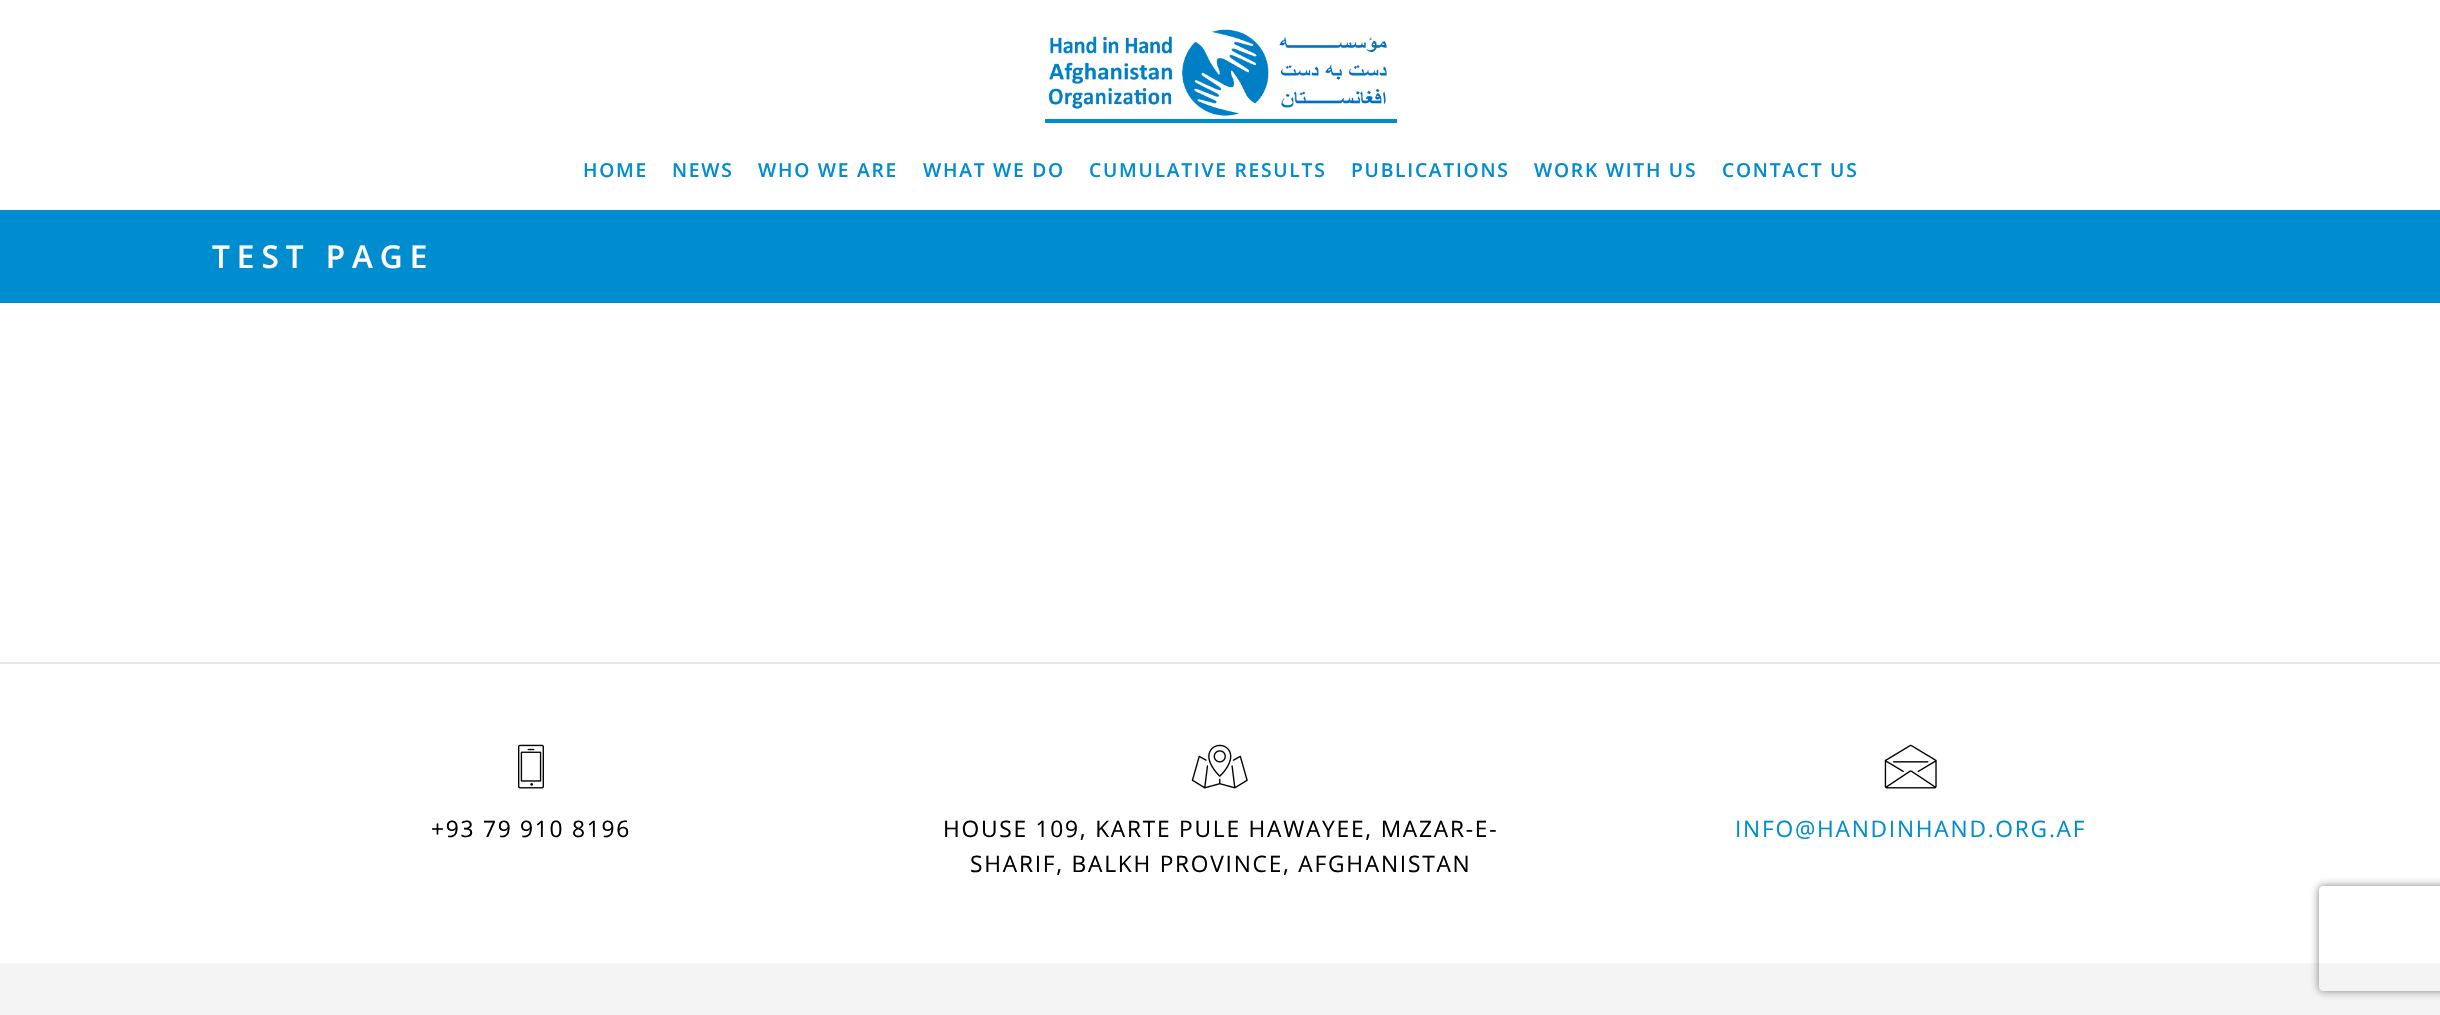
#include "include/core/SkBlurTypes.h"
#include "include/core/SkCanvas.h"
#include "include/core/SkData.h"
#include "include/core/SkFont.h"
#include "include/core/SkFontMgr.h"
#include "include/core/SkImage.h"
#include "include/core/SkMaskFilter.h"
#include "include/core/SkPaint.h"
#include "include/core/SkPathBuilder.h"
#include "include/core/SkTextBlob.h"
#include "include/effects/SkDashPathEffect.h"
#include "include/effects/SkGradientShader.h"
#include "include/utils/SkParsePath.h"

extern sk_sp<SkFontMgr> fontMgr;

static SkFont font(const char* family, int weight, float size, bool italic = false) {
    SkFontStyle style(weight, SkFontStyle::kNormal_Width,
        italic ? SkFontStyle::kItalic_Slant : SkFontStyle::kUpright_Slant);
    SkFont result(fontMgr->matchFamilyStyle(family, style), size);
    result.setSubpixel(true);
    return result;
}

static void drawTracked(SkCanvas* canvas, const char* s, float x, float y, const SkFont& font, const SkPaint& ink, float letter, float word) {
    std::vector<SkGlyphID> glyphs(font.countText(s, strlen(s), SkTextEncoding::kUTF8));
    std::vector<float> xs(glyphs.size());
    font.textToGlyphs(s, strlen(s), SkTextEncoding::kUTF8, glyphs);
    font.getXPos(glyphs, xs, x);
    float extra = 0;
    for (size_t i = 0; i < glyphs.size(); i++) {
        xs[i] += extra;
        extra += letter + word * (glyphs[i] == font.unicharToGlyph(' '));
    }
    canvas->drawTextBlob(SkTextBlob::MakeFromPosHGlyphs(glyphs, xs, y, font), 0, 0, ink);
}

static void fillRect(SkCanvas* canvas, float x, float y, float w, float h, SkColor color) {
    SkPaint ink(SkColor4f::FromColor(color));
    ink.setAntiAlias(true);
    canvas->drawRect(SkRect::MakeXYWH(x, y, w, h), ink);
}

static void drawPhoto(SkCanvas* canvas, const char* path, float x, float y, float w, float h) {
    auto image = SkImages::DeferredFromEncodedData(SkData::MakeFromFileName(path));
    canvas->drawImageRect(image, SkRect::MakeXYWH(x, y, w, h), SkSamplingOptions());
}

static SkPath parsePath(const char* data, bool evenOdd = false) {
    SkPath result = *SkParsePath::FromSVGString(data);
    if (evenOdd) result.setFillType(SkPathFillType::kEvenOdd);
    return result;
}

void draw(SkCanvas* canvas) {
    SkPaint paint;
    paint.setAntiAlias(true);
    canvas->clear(0xFFFFFFFF);
    fillRect(canvas, 1045, 119, 352, 4, 0xFF008DD0);
    drawPhoto(canvas, "assets/img1.png", 1048, 29, 339, 87);
    SkFont font1 = font("Open Sans", 600, 19.25f);
    paint.setColor(0xFF008DD0);
    drawTracked(canvas, "HOME", 583, 177, font1, paint, 1.75f, 0);
    drawTracked(canvas, "NEWS", 672, 177, font1, paint, 1.75f, 0);
    drawTracked(canvas, "WHO WE ARE", 758, 177, font1, paint, 1.75f, 0);
    drawTracked(canvas, "WHAT WE DO", 923, 177, font1, paint, 1.75f, 0);
    drawTracked(canvas, "CUMULATIVE RESULTS", 1089, 177, font1, paint, 1.75f, 0);
    drawTracked(canvas, "PUBLICATIONS", 1351, 177, font1, paint, 1.75f, 0);
    drawTracked(canvas, "WORK WITH US", 1534, 177, font1, paint, 1.75f, 0);
    drawTracked(canvas, "CONTACT US", 1722, 177, font1, paint, 1.75f, 0);
    fillRect(canvas, 0, 210, 2440, 93, 0xFF008DD0);
    SkFont font2 = font("Open Sans", 600, 31.5f);
    paint.setColor(0xFFFFFFFF);
    drawTracked(canvas, "TEST PAGE", 212, 268, font2, paint, 7, 0);
    fillRect(canvas, 0, 963, 2440, 52, 0xFFF4F4F4);
    fillRect(canvas, 0, 662, 2440, 2, 0xFFE5E5E5);
    drawPhoto(canvas, "assets/img2.png", 518, 744, 26, 45);
    SkFont font3 = font("Open Sans", 400, 22.75f);
    paint.setColor(0xFF000000);
    drawTracked(canvas, "+93 79 910 8196", 431, 837, font3, paint, 1.75f, 0);
    drawPhoto(canvas, "assets/img3.png", 1191, 744, 57, 45);
    drawTracked(canvas, "HOUSE 109, KARTE PULE HAWAYEE, MAZAR-E-", 943, 837, font3, paint, 1.75f, 0);
    drawTracked(canvas, "SHARIF, BALKH PROVINCE, AFGHANISTAN", 970, 872, font3, paint, 1.75f, 0);
    drawPhoto(canvas, "assets/img4.png", 1884, 744, 53, 45);
    paint.setColor(0xFF008DD0);
    drawTracked(canvas, "INFO@HANDINHAND.ORG.AF", 1735, 837, font3, paint, 1.75f, 0);
    canvas->save();
    canvas->clipPath(parsePath("M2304 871H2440V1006H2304ZM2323 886H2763C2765 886 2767 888 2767 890V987C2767 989 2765 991 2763 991H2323C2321 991 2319 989 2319 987V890C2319 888 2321 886 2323 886Z", true), true);
    paint.setColor(0xFF808080);
    paint.setMaskFilter(SkMaskFilter::MakeBlur(kNormal_SkBlurStyle, 4.5f));
    canvas->drawRoundRect(SkRect::MakeXYWH(2319, 886, 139, 105), 4, 4, paint);
    paint.setMaskFilter(nullptr);
    canvas->restore();
}
